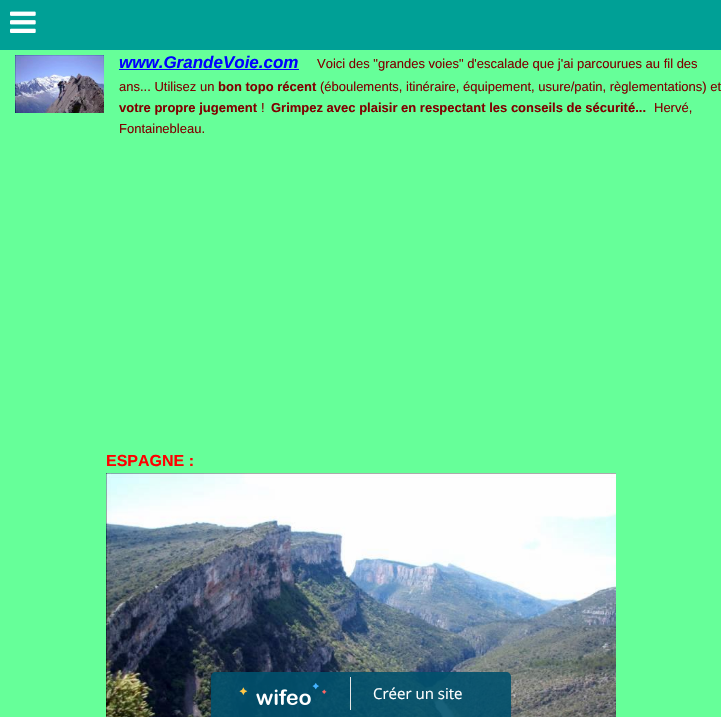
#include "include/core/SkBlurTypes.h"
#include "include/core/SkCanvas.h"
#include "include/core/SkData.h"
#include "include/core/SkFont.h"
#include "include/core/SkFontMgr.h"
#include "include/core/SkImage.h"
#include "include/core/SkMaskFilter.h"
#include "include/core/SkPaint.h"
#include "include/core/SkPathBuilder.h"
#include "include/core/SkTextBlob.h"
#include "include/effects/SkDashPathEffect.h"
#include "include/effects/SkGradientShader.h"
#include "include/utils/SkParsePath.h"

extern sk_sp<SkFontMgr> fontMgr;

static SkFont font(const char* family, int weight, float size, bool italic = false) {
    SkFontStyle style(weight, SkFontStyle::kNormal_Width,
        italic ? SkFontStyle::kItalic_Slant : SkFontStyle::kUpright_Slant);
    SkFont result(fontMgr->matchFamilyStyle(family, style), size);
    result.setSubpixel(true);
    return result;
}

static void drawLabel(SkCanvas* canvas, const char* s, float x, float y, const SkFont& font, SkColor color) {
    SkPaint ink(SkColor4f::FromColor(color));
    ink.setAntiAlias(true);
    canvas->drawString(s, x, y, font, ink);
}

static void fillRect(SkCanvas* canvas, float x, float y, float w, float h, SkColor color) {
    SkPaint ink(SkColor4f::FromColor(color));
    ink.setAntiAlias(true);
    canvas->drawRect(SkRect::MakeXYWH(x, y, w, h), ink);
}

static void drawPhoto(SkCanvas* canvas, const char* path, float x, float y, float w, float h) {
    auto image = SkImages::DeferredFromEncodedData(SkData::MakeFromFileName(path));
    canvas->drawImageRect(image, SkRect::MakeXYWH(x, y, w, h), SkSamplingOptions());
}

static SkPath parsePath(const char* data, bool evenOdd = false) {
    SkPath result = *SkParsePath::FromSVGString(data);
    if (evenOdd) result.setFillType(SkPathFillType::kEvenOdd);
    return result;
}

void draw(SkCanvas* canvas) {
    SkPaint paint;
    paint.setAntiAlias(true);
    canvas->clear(0xFF66FF99);
    drawPhoto(canvas, "assets/img1.png", 15, 55, 89, 58);
    SkFont font1 = font("Liberation Sans", 700, 17, true);
    drawLabel(canvas, "www.GrandeVoie.com", 119, 68, font1, 0xFF0000FF);
    fillRect(canvas, 119, 69, 180, 1, 0xFF0000FF);
    SkFont font2 = font("Liberation Sans", 400, 13);
    drawLabel(canvas, "Voici des \"grandes voies\" d'escalade que j'ai parcourues au fil des", 317, 68, font2, 0xFF800000);
    drawLabel(canvas, "ans... Utilisez un", 119, 91, font2, 0xFF800000);
    SkFont font3 = font("Liberation Sans", 700, 13);
    drawLabel(canvas, "bon topo récent", 218, 91, font3, 0xFF800000);
    drawLabel(canvas, "(éboulements, itinéraire, équipement, usure/patin, règlementations) et", 320, 91, font2, 0xFF800000);
    drawLabel(canvas, "votre propre jugement", 119, 112, font3, 0xFF800000);
    drawLabel(canvas, "!", 261, 112, font2, 0xFF800000);
    drawLabel(canvas, "Grimpez avec plaisir en respectant les conseils de sécurité...", 271, 112, font3, 0xFF800000);
    drawLabel(canvas, "Hervé,", 654, 112, font2, 0xFF800000);
    drawLabel(canvas, "Fontainebleau.", 119, 133, font2, 0xFF800000);
    fillRect(canvas, 0, 0, 721, 50, 0xFF00A096);
    drawPhoto(canvas, "assets/img2.png", 10, 11, 26, 22);
    SkFont font4 = font("Liberation Sans", 700, 16);
    drawLabel(canvas, "ESPAGNE :", 106, 466, font4, 0xFFFF0000);
    drawPhoto(canvas, "assets/img3.png", 106, 473, 510, 244);
    paint.setColor(0xE600506B);
    canvas->drawPath(parsePath("M216 672H506C509 672 511 674 511 677V717H211V677C211 674 213 672 216 672Z"), paint);
    fillRect(canvas, 350, 677, 1, 33, 0xFFE7E7E7);
    drawPhoto(canvas, "assets/img4.png", 239, 683, 88, 22);
    SkFont font5 = font("Open Sans", 400, 15);
    drawLabel(canvas, "Créer un site", 373, 699, font5, 0xFFFFFFFF);
}
